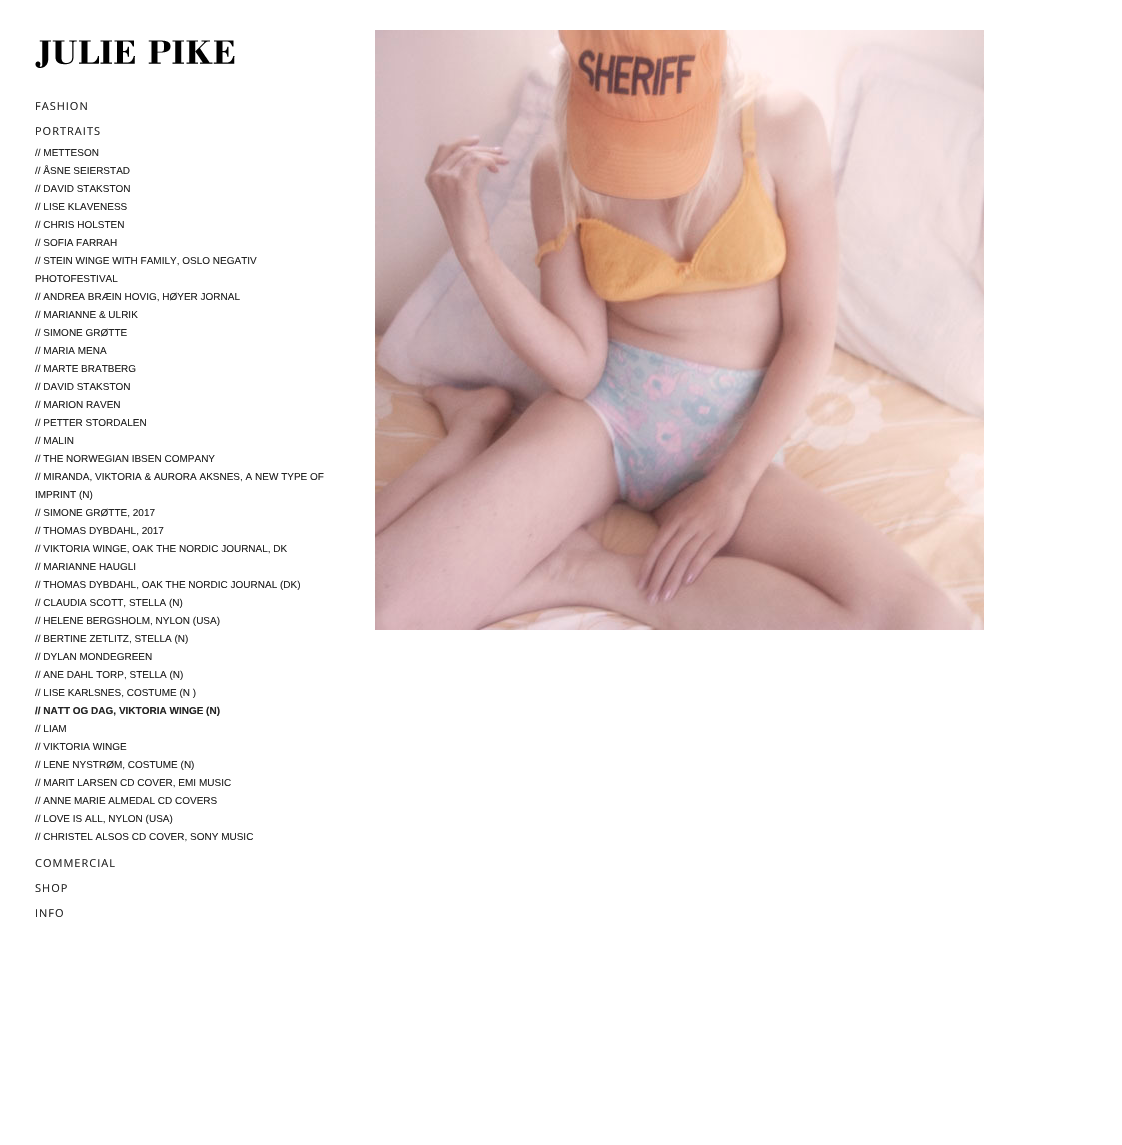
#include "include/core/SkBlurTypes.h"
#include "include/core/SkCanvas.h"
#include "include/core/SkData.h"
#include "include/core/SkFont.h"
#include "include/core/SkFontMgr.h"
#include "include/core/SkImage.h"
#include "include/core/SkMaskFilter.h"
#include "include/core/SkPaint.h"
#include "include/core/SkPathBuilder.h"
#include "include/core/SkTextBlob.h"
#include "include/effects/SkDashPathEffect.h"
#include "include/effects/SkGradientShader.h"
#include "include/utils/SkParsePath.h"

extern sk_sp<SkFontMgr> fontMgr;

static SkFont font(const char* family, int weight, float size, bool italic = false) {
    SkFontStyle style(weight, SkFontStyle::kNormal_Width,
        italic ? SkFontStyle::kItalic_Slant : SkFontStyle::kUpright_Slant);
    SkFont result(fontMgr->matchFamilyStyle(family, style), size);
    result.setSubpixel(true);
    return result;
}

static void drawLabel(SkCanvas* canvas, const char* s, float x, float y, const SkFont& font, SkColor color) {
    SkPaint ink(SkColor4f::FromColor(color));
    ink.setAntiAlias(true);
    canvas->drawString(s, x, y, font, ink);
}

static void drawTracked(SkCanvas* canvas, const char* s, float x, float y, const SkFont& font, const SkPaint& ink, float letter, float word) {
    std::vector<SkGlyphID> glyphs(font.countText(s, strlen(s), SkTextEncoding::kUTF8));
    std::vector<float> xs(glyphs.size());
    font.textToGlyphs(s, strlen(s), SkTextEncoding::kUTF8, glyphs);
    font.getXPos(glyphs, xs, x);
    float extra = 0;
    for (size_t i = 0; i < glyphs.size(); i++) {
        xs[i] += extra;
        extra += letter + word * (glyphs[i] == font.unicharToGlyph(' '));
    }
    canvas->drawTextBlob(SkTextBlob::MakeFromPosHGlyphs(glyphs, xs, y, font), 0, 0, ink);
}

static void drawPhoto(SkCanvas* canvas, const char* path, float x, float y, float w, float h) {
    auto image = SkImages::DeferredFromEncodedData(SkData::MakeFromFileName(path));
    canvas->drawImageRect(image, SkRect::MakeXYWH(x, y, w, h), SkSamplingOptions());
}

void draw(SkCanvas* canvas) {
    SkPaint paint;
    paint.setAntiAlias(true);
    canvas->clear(0xFFFFFFFF);
    drawPhoto(canvas, "assets/img1.png", 35, 40, 200, 28);
    SkFont font1 = font("Open Sans", 400, 11);
    paint.setColor(0xFF222222);
    drawTracked(canvas, "FASHION", 35, 110, font1, paint, 1, 0);
    drawTracked(canvas, "PORTRAITS", 35, 135, font1, paint, 1, 0);
    SkFont font2 = font("Liberation Sans", 400, 10);
    drawLabel(canvas, "// METTESON", 35, 156, font2, 0xFF222222);
    drawLabel(canvas, "// ÅSNE SEIERSTAD", 35, 174, font2, 0xFF222222);
    drawLabel(canvas, "// DAVID STAKSTON", 35, 192, font2, 0xFF222222);
    drawLabel(canvas, "// LISE KLAVENESS", 35, 210, font2, 0xFF222222);
    drawLabel(canvas, "// CHRIS HOLSTEN", 35, 228, font2, 0xFF222222);
    drawLabel(canvas, "// SOFIA FARRAH", 35, 246, font2, 0xFF222222);
    drawLabel(canvas, "// STEIN WINGE WITH FAMILY, OSLO NEGATIV", 35, 264, font2, 0xFF222222);
    drawLabel(canvas, "PHOTOFESTIVAL", 35, 282, font2, 0xFF222222);
    drawLabel(canvas, "// ANDREA BRÆIN HOVIG, HØYER JORNAL", 35, 300, font2, 0xFF222222);
    drawLabel(canvas, "// MARIANNE & ULRIK", 35, 318, font2, 0xFF222222);
    drawLabel(canvas, "// SIMONE GRØTTE", 35, 336, font2, 0xFF222222);
    drawLabel(canvas, "// MARIA MENA", 35, 354, font2, 0xFF222222);
    drawLabel(canvas, "// MARTE BRATBERG", 35, 372, font2, 0xFF222222);
    drawLabel(canvas, "// DAVID STAKSTON", 35, 390, font2, 0xFF222222);
    drawLabel(canvas, "// MARION RAVEN", 35, 408, font2, 0xFF222222);
    drawLabel(canvas, "// PETTER STORDALEN", 35, 426, font2, 0xFF222222);
    drawLabel(canvas, "// MALIN", 35, 444, font2, 0xFF222222);
    drawLabel(canvas, "// THE NORWEGIAN IBSEN COMPANY", 35, 462, font2, 0xFF222222);
    drawLabel(canvas, "// MIRANDA, VIKTORIA & AURORA AKSNES, A NEW TYPE OF", 35, 480, font2, 0xFF222222);
    drawLabel(canvas, "IMPRINT (N)", 35, 498, font2, 0xFF222222);
    drawLabel(canvas, "// SIMONE GRØTTE, 2017", 35, 516, font2, 0xFF222222);
    drawLabel(canvas, "// THOMAS DYBDAHL, 2017", 35, 534, font2, 0xFF222222);
    drawLabel(canvas, "// VIKTORIA WINGE, OAK THE NORDIC JOURNAL, DK", 35, 552, font2, 0xFF222222);
    drawLabel(canvas, "// MARIANNE HAUGLI", 35, 570, font2, 0xFF222222);
    drawLabel(canvas, "// THOMAS DYBDAHL, OAK THE NORDIC JOURNAL (DK)", 35, 588, font2, 0xFF222222);
    drawLabel(canvas, "// CLAUDIA SCOTT, STELLA (N)", 35, 606, font2, 0xFF222222);
    drawLabel(canvas, "// HELENE BERGSHOLM, NYLON (USA)", 35, 624, font2, 0xFF222222);
    drawLabel(canvas, "// BERTINE ZETLITZ, STELLA (N)", 35, 642, font2, 0xFF222222);
    drawLabel(canvas, "// DYLAN MONDEGREEN", 35, 660, font2, 0xFF222222);
    drawLabel(canvas, "// ANE DAHL TORP, STELLA (N)", 35, 678, font2, 0xFF222222);
    drawLabel(canvas, "// LISE KARLSNES, COSTUME (N )", 35, 696, font2, 0xFF222222);
    SkFont font3 = font("Liberation Sans", 700, 10);
    drawLabel(canvas, "// NATT OG DAG, VIKTORIA WINGE (N)", 35, 714, font3, 0xFF222222);
    drawLabel(canvas, "// LIAM", 35, 732, font2, 0xFF222222);
    drawLabel(canvas, "// VIKTORIA WINGE", 35, 750, font2, 0xFF222222);
    drawLabel(canvas, "// LENE NYSTRØM, COSTUME (N)", 35, 768, font2, 0xFF222222);
    drawLabel(canvas, "// MARIT LARSEN CD COVER, EMI MUSIC", 35, 786, font2, 0xFF222222);
    drawLabel(canvas, "// ANNE MARIE ALMEDAL CD COVERS", 35, 804, font2, 0xFF222222);
    drawLabel(canvas, "// LOVE IS ALL, NYLON (USA)", 35, 822, font2, 0xFF222222);
    drawLabel(canvas, "// CHRISTEL ALSOS CD COVER, SONY MUSIC", 35, 840, font2, 0xFF222222);
    drawTracked(canvas, "COMMERCIAL", 35, 867, font1, paint, 1, 0);
    drawTracked(canvas, "SHOP", 35, 892, font1, paint, 1, 0);
    drawTracked(canvas, "INFO", 35, 917, font1, paint, 1, 0);
    drawPhoto(canvas, "assets/img2.png", 375, 30, 609, 600);
}
